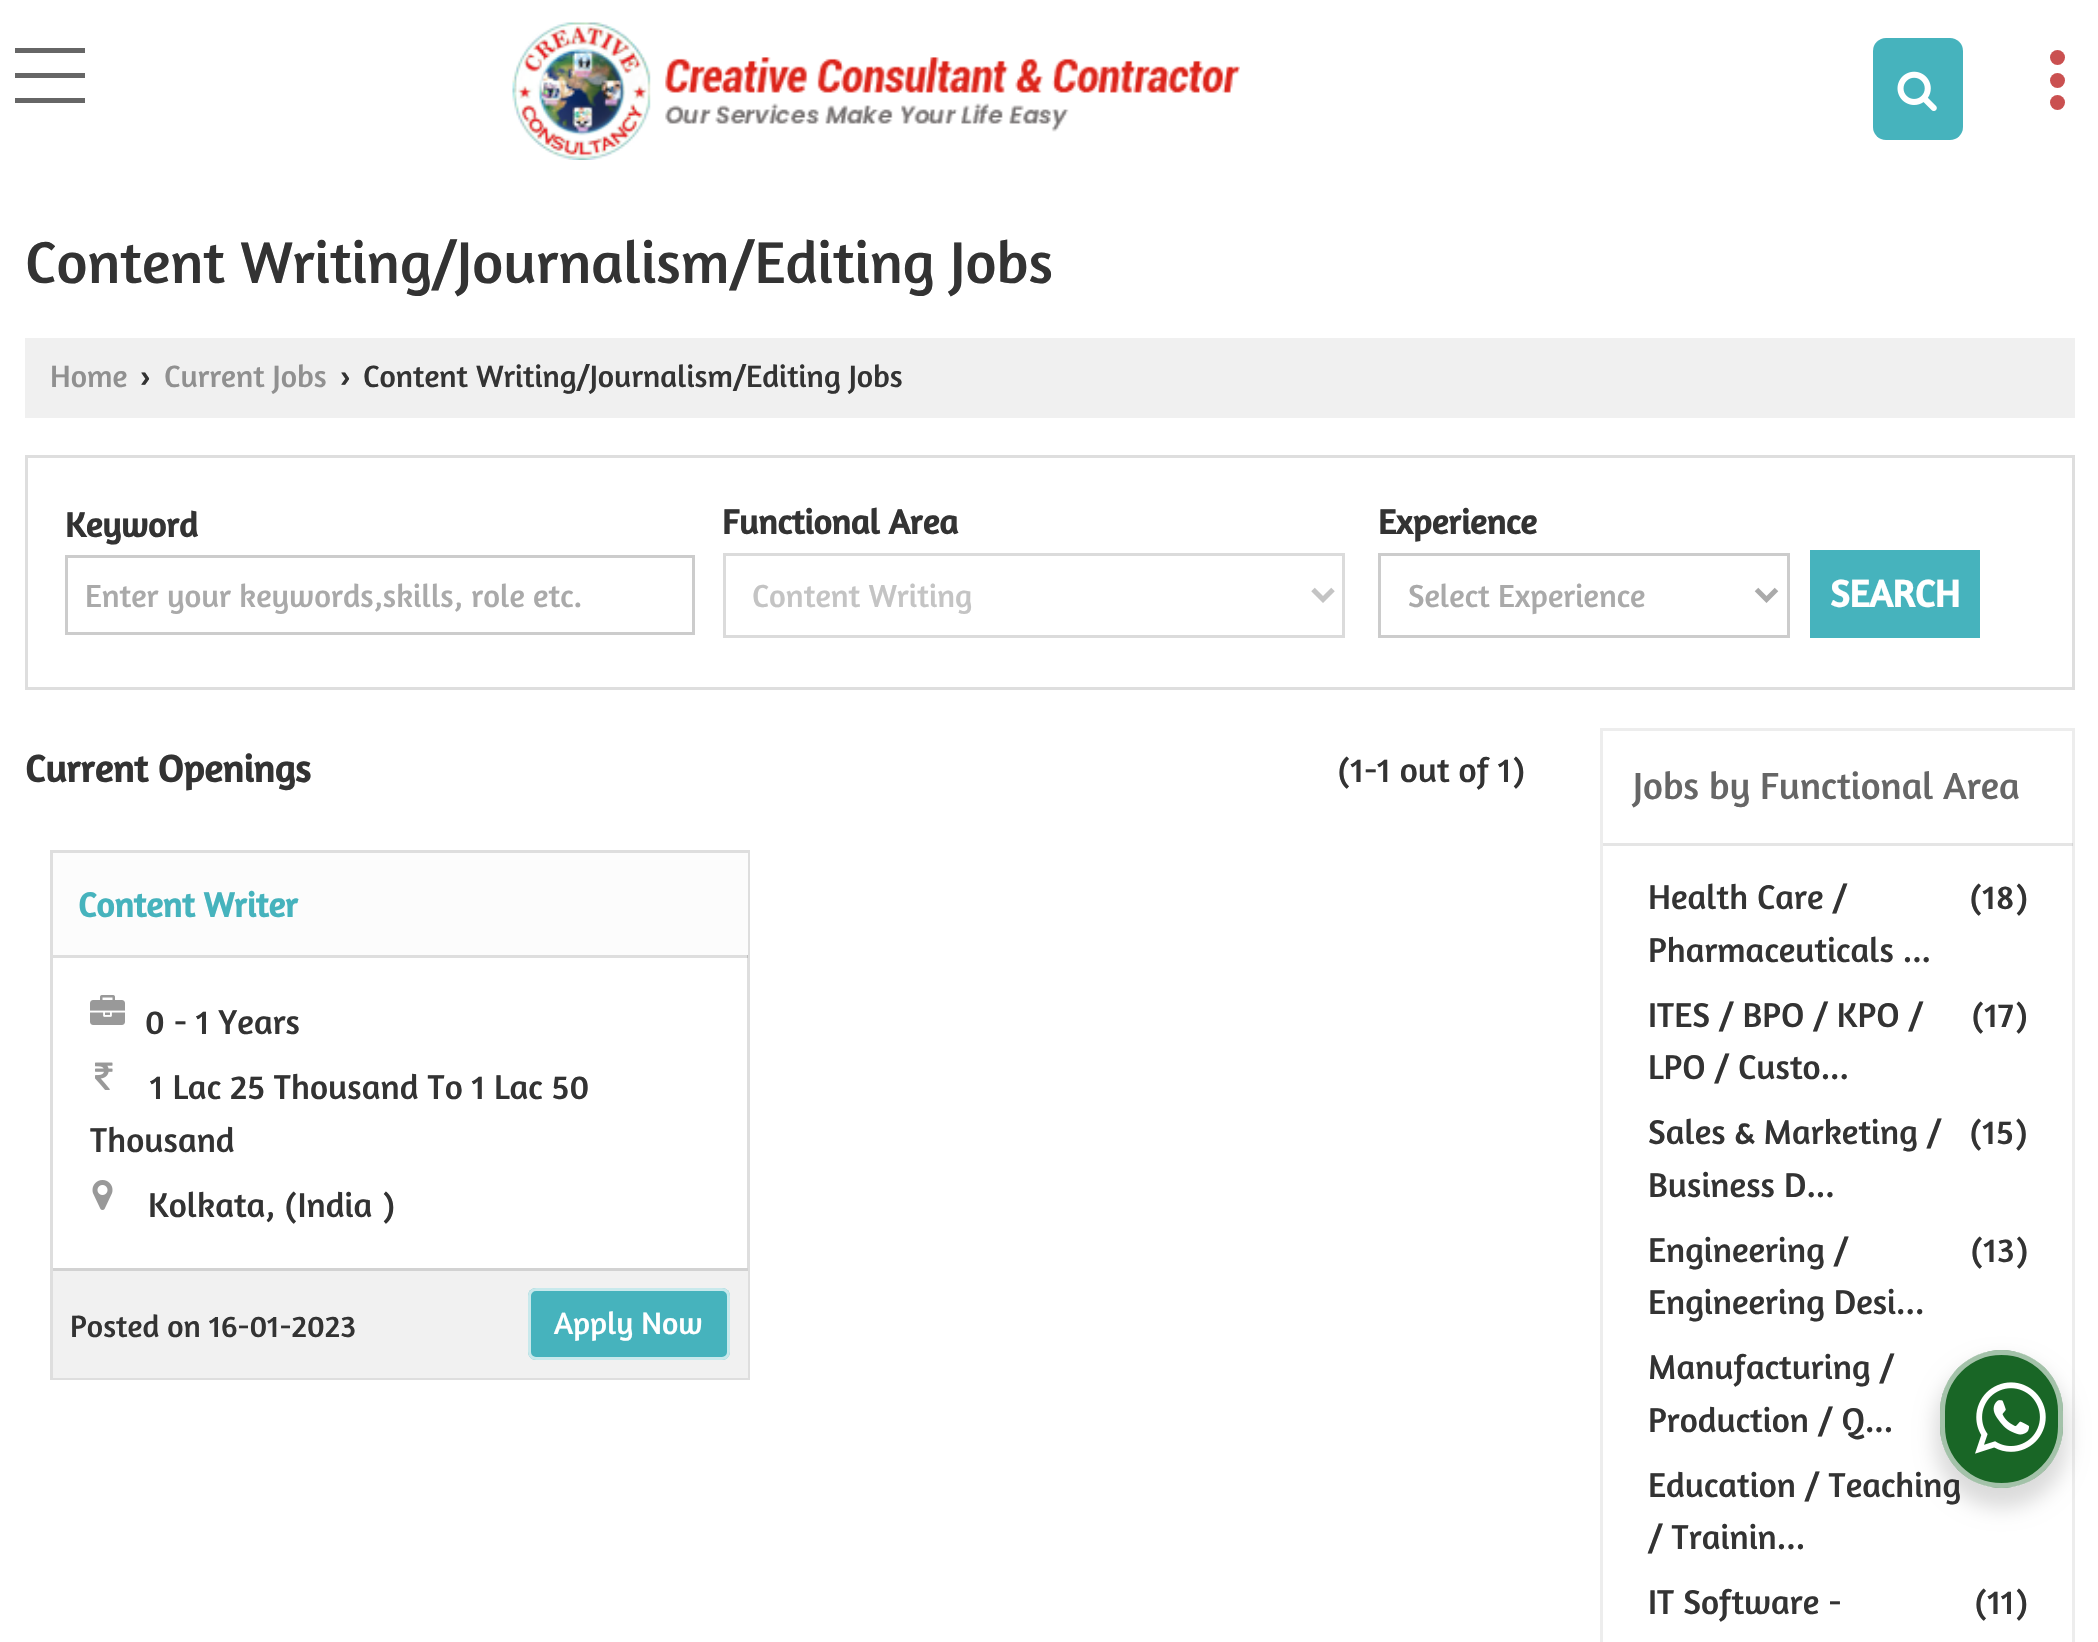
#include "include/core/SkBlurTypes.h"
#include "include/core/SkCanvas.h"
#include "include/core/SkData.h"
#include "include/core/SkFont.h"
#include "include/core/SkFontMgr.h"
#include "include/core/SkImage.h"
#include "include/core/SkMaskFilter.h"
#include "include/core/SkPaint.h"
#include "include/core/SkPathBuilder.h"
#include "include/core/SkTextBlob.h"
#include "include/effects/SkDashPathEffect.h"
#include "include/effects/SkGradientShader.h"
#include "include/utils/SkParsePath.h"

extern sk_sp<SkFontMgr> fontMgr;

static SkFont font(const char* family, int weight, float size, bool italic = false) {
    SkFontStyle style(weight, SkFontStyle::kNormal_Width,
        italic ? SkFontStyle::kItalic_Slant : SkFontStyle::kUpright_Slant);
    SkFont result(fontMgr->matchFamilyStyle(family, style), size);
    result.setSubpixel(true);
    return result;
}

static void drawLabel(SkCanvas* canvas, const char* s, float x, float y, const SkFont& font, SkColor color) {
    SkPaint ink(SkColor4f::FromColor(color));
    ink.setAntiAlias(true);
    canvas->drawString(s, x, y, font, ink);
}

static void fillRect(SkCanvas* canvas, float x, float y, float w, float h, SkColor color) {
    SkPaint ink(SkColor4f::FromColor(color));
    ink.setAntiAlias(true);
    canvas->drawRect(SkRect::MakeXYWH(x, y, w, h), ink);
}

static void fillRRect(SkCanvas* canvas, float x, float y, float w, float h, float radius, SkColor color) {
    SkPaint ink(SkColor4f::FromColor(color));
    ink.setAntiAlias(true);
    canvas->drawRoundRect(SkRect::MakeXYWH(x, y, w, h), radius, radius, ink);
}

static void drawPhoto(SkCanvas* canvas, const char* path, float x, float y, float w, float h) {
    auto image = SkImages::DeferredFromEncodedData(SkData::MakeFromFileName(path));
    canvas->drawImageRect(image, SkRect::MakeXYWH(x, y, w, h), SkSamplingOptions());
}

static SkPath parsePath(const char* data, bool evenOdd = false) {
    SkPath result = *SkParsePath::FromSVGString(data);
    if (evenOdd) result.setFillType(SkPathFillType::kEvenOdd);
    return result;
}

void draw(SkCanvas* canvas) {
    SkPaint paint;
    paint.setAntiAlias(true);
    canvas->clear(0xFFFFFFFF);
    drawPhoto(canvas, "assets/img1.png", 512, 22, 728, 138);
    fillRect(canvas, 15, 73, 70, 5, 0xFF666666);
    fillRect(canvas, 15, 48, 70, 5, 0xFF666666);
    fillRect(canvas, 15, 98, 70, 5, 0xFF666666);
    fillRRect(canvas, 1873, 38, 90, 102, 13, 0xFF46B3BD);
    drawPhoto(canvas, "assets/img2.png", 1897, 71, 40, 40);
    paint.setColor(0xFFCA5050);
    canvas->drawCircle(2057.5f, 80.5f, 7.5f, paint);
    canvas->drawCircle(2057.5f, 57.5f, 7.5f, paint);
    canvas->drawCircle(2057.5f, 102.5f, 7.5f, paint);
    SkFont font1 = font("Amaranth", 400, 60);
    drawLabel(canvas, "Content Writing/Journalism/Editing Jobs", 25, 283, font1, 0xFF333333);
    fillRect(canvas, 25, 338, 2050, 80, 0xFFF0F0F0);
    SkFont font2 = font("Amaranth", 400, 31.5f);
    drawLabel(canvas, "Home", 50, 387, font2, 0xFF909090);
    SkFont font3 = font("Liberation Sans", 700, 31.5f);
    drawLabel(canvas, "›", 140, 387, font3, 0xFF333333);
    drawLabel(canvas, "Current Jobs", 164, 387, font2, 0xFF909090);
    drawLabel(canvas, "›", 340, 387, font3, 0xFF333333);
    drawLabel(canvas, "Content Writing/Journalism/Editing Jobs", 363, 387, font2, 0xFF333333);
    paint.setStroke(true);
    paint.setStrokeWidth(3);
    paint.setColor(0xFFDEDEDE);
    canvas->drawRect(SkRect::MakeXYWH(26.5f, 456.5f, 2047, 232), paint);
    SkFont font4 = font("Amaranth", 700, 35);
    drawLabel(canvas, "Keyword", 65, 537, font4, 0xFF333333);
    paint.setColor(0xFFCCCCCC);
    canvas->drawRect(SkRect::MakeXYWH(66.5f, 556.5f, 627, 77), paint);
    SkFont font5 = font("Amaranth", 400, 32.5f);
    drawLabel(canvas, "Enter your keywords,skills, role etc.", 85, 607, font5, 0xFFAAAAAA);
    drawLabel(canvas, "Functional Area", 722, 534, font4, 0xFF333333);
    paint.setColor(0xFFDBDBDB);
    canvas->drawRect(SkRect::MakeXYWH(724.5f, 554.5f, 619, 82), paint);
    paint.setStrokeWidth(5);
    paint.setColor(0xFFC4C4C4);
    canvas->drawPath(parsePath("M1313 589.5L1323 599.5L1333 589.5"), paint);
    drawLabel(canvas, "Content Writing", 752, 607, font5, 0xFFC4C4C4);
    drawLabel(canvas, "Experience", 1378, 534, font4, 0xFF333333);
    paint.setStrokeWidth(3);
    paint.setColor(0xFFCCCCCC);
    canvas->drawRect(SkRect::MakeXYWH(1379.5f, 554.5f, 409, 82), paint);
    paint.setStrokeWidth(5);
    paint.setColor(0xFFAAAAAA);
    canvas->drawPath(parsePath("M1756.5 589.5L1766.5 599.5L1776.5 589.5"), paint);
    drawLabel(canvas, "Select Experience", 1408, 607, font5, 0xFFAAAAAA);
    fillRect(canvas, 1810, 550, 170, 88, 0xFF46B3BD);
    SkFont font6 = font("Amaranth", 700, 38.5f);
    drawLabel(canvas, "SEARCH", 1830, 607, font6, 0xFFFFFFFF);
    drawLabel(canvas, "Current Openings", 25, 782, font6, 0xFF333333);
    SkFont font7 = font("Amaranth", 400, 35);
    drawLabel(canvas, "(1-1 out of 1)", 1337, 782, font7, 0xFF333333);
    paint.setStrokeWidth(3);
    paint.setColor(0xFFDEDEDE);
    canvas->drawRect(SkRect::MakeXYWH(51.5f, 851.5f, 697, 527), paint);
    fillRect(canvas, 53, 853, 695, 102, 0xFFFCFCFC);
    drawLabel(canvas, "Content Writer", 78, 917, font4, 0xFF46B3BD);
    fillRect(canvas, 53, 955, 695, 3, 0x21000000);
    drawPhoto(canvas, "assets/img3.png", 90, 995, 35, 30);
    drawLabel(canvas, "0 - 1 Years", 145, 1034, font7, 0xFF333333);
    drawPhoto(canvas, "assets/img4.png", 95, 1062, 18, 28);
    drawLabel(canvas, "1 Lac 25 Thousand To 1 Lac 50", 150, 1099, font7, 0xFF333333);
    drawLabel(canvas, "Thousand", 90, 1152, font7, 0xFF333333);
    drawPhoto(canvas, "assets/img5.png", 92, 1180, 21, 30);
    drawLabel(canvas, "Kolkata, (India )", 148, 1217, font7, 0xFF333333);
    fillRect(canvas, 53, 1271, 695, 107, 0xFFF1F1F1);
    fillRect(canvas, 53, 1268, 695, 3, 0xFFD2D2D2);
    drawLabel(canvas, "Posted on 16-01-2023", 70, 1337, font2, 0xFF333333);
    fillRRect(canvas, 528, 1288, 202, 72, 8, 0xFF46B3BD);
    paint.setColor(0xB3FFFFFF);
    canvas->drawRoundRect(SkRect::MakeXYWH(529.5f, 1289.5f, 199, 69), 6.5f, 6.5f, paint);
    drawLabel(canvas, "Apply Now", 554, 1334, font2, 0xFFFFFFFF);
    paint.setColor(0xFFEDEDED);
    canvas->drawRect(SkRect::MakeXYWH(1601.5f, 729.5f, 472, 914), paint);
    fillRect(canvas, 1603, 843, 470, 3, 0x1A000000);
    SkFont font8 = font("Amaranth", 400, 38.5f);
    drawLabel(canvas, "Jobs by Functional Area", 1633, 799, font8, 0xFF666666);
    drawLabel(canvas, "Health Care /", 1648, 909, font7, 0xFF333333);
    drawLabel(canvas, "(18)", 1969, 909, font7, 0xFF333333);
    drawLabel(canvas, "Pharmaceuticals ...", 1648, 962, font7, 0xFF333333);
    drawLabel(canvas, "ITES / BPO / KPO /", 1648, 1027, font7, 0xFF333333);
    drawLabel(canvas, "(17)", 1971, 1027, font7, 0xFF333333);
    drawLabel(canvas, "LPO / Custo...", 1648, 1079, font7, 0xFF333333);
    drawLabel(canvas, "Sales & Marketing /", 1648, 1144, font7, 0xFF333333);
    drawLabel(canvas, "(15)", 1969, 1144, font7, 0xFF333333);
    drawLabel(canvas, "Business D...", 1648, 1197, font7, 0xFF333333);
    drawLabel(canvas, "Engineering /", 1648, 1262, font7, 0xFF333333);
    drawLabel(canvas, "(13)", 1970, 1262, font7, 0xFF333333);
    drawLabel(canvas, "Engineering Desi...", 1648, 1314, font7, 0xFF333333);
    drawLabel(canvas, "Manufacturing /", 1648, 1379, font7, 0xFF333333);
    drawLabel(canvas, "Production / Q...", 1648, 1432, font7, 0xFF333333);
    drawLabel(canvas, "Education / Teaching", 1648, 1497, font7, 0xFF333333);
    drawLabel(canvas, "/ Trainin...", 1648, 1549, font7, 0xFF333333);
    drawLabel(canvas, "IT Software -", 1648, 1614, font7, 0xFF333333);
    drawLabel(canvas, "(11)", 1974, 1614, font7, 0xFF333333);
    paint.setStroke(false);
    paint.setColor(0x24000000);
    paint.setMaskFilter(SkMaskFilter::MakeBlur(kNormal_SkBlurStyle, 10));
    canvas->drawRoundRect(SkRect::MakeXYWH(1935, 1360, 133, 148), 66.5f, 66.5f, paint);
    paint.setMaskFilter(nullptr);
    fillRRect(canvas, 1940, 1350, 123, 138, 61.5f, 0xFF196626);
    paint.setStroke(true);
    paint.setStrokeWidth(5);
    paint.setColor(0x99FFFFFF);
    canvas->drawRoundRect(SkRect::MakeXYWH(1942.5f, 1352.5f, 118, 133), 59, 59, paint);
    drawPhoto(canvas, "assets/img6.png", 1975, 1382, 71, 72);
}
